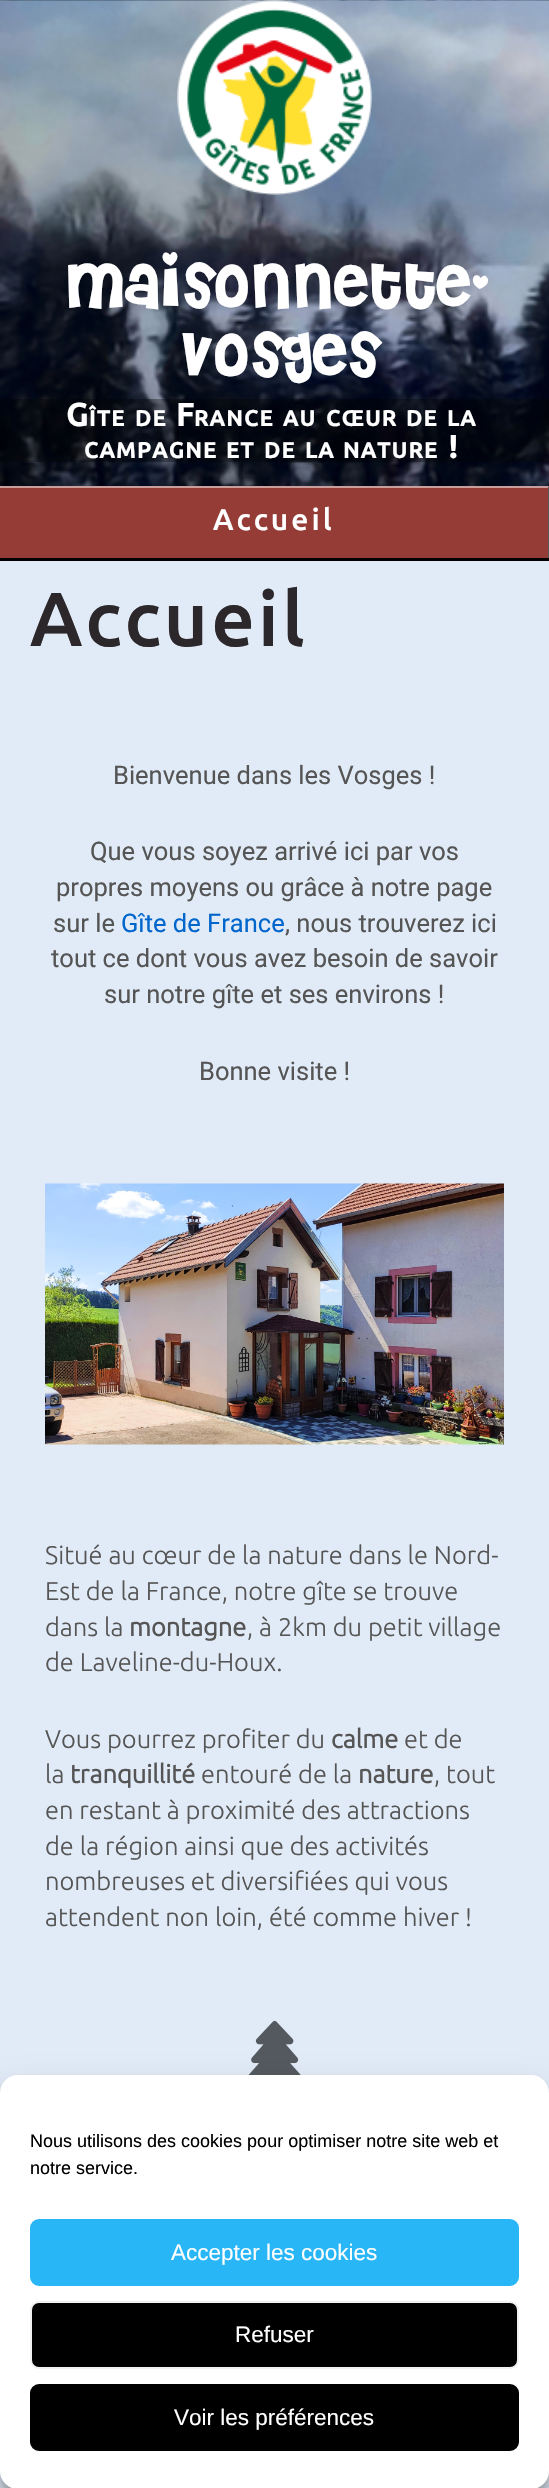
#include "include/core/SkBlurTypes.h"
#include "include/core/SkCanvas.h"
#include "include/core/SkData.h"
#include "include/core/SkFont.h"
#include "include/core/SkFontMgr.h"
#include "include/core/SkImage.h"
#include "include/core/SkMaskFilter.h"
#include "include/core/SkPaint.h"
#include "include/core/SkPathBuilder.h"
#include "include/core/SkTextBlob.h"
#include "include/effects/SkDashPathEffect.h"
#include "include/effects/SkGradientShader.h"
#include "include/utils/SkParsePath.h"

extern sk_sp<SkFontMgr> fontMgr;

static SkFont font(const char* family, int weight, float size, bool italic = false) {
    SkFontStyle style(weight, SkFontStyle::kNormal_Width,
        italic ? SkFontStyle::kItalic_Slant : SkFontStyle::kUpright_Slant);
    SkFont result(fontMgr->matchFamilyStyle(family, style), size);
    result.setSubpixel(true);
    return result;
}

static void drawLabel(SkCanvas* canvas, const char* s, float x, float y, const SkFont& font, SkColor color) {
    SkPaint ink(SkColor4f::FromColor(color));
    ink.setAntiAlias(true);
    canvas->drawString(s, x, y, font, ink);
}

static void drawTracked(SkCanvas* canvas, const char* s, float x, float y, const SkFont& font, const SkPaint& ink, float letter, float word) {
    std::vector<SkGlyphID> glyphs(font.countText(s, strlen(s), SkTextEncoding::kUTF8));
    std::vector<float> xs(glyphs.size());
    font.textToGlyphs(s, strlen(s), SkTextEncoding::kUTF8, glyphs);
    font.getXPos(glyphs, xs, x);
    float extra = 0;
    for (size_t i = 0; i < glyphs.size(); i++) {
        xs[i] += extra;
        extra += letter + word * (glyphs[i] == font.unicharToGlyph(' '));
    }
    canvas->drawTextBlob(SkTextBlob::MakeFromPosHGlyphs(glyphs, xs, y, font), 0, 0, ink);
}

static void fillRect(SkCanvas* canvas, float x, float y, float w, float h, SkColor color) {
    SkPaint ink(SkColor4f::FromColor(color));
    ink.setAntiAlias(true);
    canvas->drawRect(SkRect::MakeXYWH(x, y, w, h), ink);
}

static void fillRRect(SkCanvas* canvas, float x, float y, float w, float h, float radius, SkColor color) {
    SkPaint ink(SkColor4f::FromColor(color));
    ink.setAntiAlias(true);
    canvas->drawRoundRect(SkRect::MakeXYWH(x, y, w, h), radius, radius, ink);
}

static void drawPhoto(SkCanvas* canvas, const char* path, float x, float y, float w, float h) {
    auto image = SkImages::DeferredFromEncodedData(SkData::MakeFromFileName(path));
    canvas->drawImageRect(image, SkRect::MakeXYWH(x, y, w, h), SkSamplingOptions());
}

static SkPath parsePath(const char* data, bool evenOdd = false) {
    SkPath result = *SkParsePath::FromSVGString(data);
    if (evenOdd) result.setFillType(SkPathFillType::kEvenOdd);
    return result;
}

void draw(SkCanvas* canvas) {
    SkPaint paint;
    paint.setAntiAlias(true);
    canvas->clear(0xFFFFFFFF);
    drawPhoto(canvas, "assets/img1.png", 0, 0, 549, 486);
    fillRect(canvas, 0, 560, 549, 1, 0xFF000000);
    drawPhoto(canvas, "assets/img2.png", 177, 0, 195, 195);
    SkFont font1 = font("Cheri", 400, 63);
    drawLabel(canvas, "Maisonnette-", 61, 306, font1, 0xFFFFFFFF);
    drawLabel(canvas, "vosges", 175, 375, font1, 0xFFFFFFFF);
    fillRect(canvas, 0, 399, 549, 63, 0x59000000);
    SkFont font2 = font("Ubuntu", 700, 32);
    paint.setColor(0xFFFFFFFF);
    drawTracked(canvas, "G", 66, 426, font2, paint, 1.5f, 0);
    SkFont font3 = font("Ubuntu", 700, 22);
    drawTracked(canvas, "ÎTE", 89, 426, font3, paint, 1.5f, 0);
    drawTracked(canvas, "DE", 135, 426, font3, paint, 1.5f, 0);
    drawTracked(canvas, "F", 176, 426, font2, paint, 1.5f, 0);
    drawTracked(canvas, "RANCE", 194, 426, font3, paint, 1.5f, 0);
    drawTracked(canvas, "AU", 283, 426, font3, paint, 1.5f, 0);
    drawTracked(canvas, "CŒUR", 326, 426, font3, paint, 1.5f, 0);
    drawTracked(canvas, "DE", 406, 426, font3, paint, 1.5f, 0);
    drawTracked(canvas, "LA", 447, 426, font3, paint, 1.5f, 0);
    drawTracked(canvas, "CAMPAGNE", 84, 458, font3, paint, 1.5f, 0);
    drawTracked(canvas, "ET", 226, 458, font3, paint, 1.5f, 0);
    drawTracked(canvas, "DE", 264, 458, font3, paint, 1.5f, 0);
    drawTracked(canvas, "LA", 305, 458, font3, paint, 1.5f, 0);
    drawTracked(canvas, "NATURE", 343, 458, font3, paint, 1.5f, 0);
    drawTracked(canvas, "!", 448, 458, font2, paint, 1.5f, 0);
    fillRect(canvas, 0, 486, 549, 72, 0xFF953C37);
    paint.setColor(0xFFCA9E9B);
    canvas->drawPath(parsePath("M0 486H549L548 488H0Z"), paint);
    paint.setColor(0xFF585858);
    canvas->drawPath(parsePath("M549 486V560L548 558V488Z"), paint);
    fillRect(canvas, 0, 558, 549, 2, 0xFF000000);
    SkFont font4 = font("Ubuntu", 500, 30);
    paint.setColor(0xFFFFFFFF);
    drawTracked(canvas, "Accueil", 213, 530, font4, paint, 3, 0);
    fillRect(canvas, 0, 561, 549, 1927, 0xFFE1EBF7);
    SkFont font5 = font("Ubuntu", 500, 76.5f);
    paint.setColor(0xFF2B272A);
    drawTracked(canvas, "Accueil", 30, 646, font5, paint, 3, 0);
    SkFont font6 = font("Roboto", 400, 25.5f);
    drawLabel(canvas, "Bienvenue dans les Vosges !", 113, 784, font6, 0xFF555555);
    drawLabel(canvas, "Que vous soyez arrivé ici par vos", 90, 860, font6, 0xFF555555);
    drawLabel(canvas, "propres moyens ou grâce à notre page", 56, 896, font6, 0xFF555555);
    drawLabel(canvas, "sur le", 53, 932, font6, 0xFF555555);
    drawLabel(canvas, "Gîte de France", 121, 932, font6, 0xFF0066CC);
    drawLabel(canvas, ", nous trouverez ici", 285, 932, font6, 0xFF555555);
    drawLabel(canvas, "tout ce dont vous avez besoin de savoir", 51, 967, font6, 0xFF555555);
    drawLabel(canvas, "sur notre gîte et ses environs !", 104, 1003, font6, 0xFF555555);
    drawLabel(canvas, "Bonne visite !", 199, 1080, font6, 0xFF555555);
    drawPhoto(canvas, "assets/img3.png", 45, 1183, 459, 262);
    SkFont font7 = font("Ubuntu", 300, 25.5f);
    drawLabel(canvas, "Situé au cœur de la nature dans le Nord-", 45, 1564, font7, 0xFF555555);
    drawLabel(canvas, "Est de la France, notre gîte se trouve", 45, 1600, font7, 0xFF555555);
    drawLabel(canvas, "dans la", 45, 1636, font7, 0xFF555555);
    SkFont font8 = font("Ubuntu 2", 700, 25.5f);
    drawLabel(canvas, "montagne", 129, 1636, font8, 0xFF555555);
    drawLabel(canvas, ", à 2km du petit village", 247, 1636, font7, 0xFF555555);
    drawLabel(canvas, "de Laveline-du-Houx.", 45, 1671, font7, 0xFF555555);
    drawLabel(canvas, "Vous pourrez profiter du", 45, 1748, font7, 0xFF555555);
    drawLabel(canvas, "calme", 331, 1748, font8, 0xFF555555);
    drawLabel(canvas, "et de", 404, 1748, font7, 0xFF555555);
    drawLabel(canvas, "la", 45, 1783, font7, 0xFF555555);
    drawLabel(canvas, "tranquillité", 70, 1783, font8, 0xFF555555);
    drawLabel(canvas, "entouré de la", 201, 1783, font7, 0xFF555555);
    drawLabel(canvas, "nature", 358, 1783, font8, 0xFF555555);
    drawLabel(canvas, ", tout", 434, 1783, font7, 0xFF555555);
    drawLabel(canvas, "en restant à proximité des attractions", 45, 1819, font7, 0xFF555555);
    drawLabel(canvas, "de la région ainsi que des activités", 45, 1855, font7, 0xFF555555);
    drawLabel(canvas, "nombreuses et diversifiées qui vous", 45, 1890, font7, 0xFF555555);
    drawLabel(canvas, "attendent non loin, été comme hiver !", 45, 1926, font7, 0xFF555555);
    drawPhoto(canvas, "assets/img4.png", 248, 2020, 53, 55);
    paint.setColor(0x3B000000);
    paint.setMaskFilter(SkMaskFilter::MakeBlur(kNormal_SkBlurStyle, 4.5f));
    canvas->drawRoundRect(SkRect::MakeXYWH(0, 2084, 549, 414), 18, 18, paint);
    paint.setMaskFilter(nullptr);
    paint.setColor(0x30000000);
    paint.setMaskFilter(SkMaskFilter::MakeBlur(kNormal_SkBlurStyle, 15));
    canvas->drawRoundRect(SkRect::MakeXYWH(0, 2090, 549, 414), 18, 18, paint);
    paint.setMaskFilter(nullptr);
    fillRRect(canvas, 0, 2075, 549, 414, 18, 0xFFFFFFFF);
    SkFont font9 = font("Liberation Sans", 400, 18);
    drawLabel(canvas, "Nous utilisons des cookies pour optimiser notre site web et", 30, 2147, font9, 0xFF000000);
    drawLabel(canvas, "notre service.", 30, 2174, font9, 0xFF000000);
    paint.setColor(0xFF29B6F6);
    canvas->drawRoundRect(SkRect::MakeXYWH(31, 2220, 487, 65), 8, 8, paint);
    paint.setStroke(true);
    paint.setStrokeWidth(2);
    canvas->drawRoundRect(SkRect::MakeXYWH(31, 2220, 487, 65), 8, 8, paint);
    SkFont font10 = font("Liberation Sans", 400, 22.5f);
    drawLabel(canvas, "Accepter les cookies", 171, 2260, font10, 0xFFFFFFFF);
    paint.setStroke(false);
    paint.setColor(0xFF000000);
    canvas->drawRoundRect(SkRect::MakeXYWH(31, 2302, 487, 66), 8, 8, paint);
    paint.setStroke(true);
    paint.setColor(0xFFF1F1F1);
    canvas->drawRoundRect(SkRect::MakeXYWH(31, 2302, 487, 66), 8, 8, paint);
    drawLabel(canvas, "Refuser", 235, 2342, font10, 0xFFFFFFFF);
    paint.setStroke(false);
    paint.setColor(0xFF000000);
    canvas->drawRoundRect(SkRect::MakeXYWH(31, 2385, 487, 65), 8, 8, paint);
    paint.setStroke(true);
    canvas->drawRoundRect(SkRect::MakeXYWH(31, 2385, 487, 65), 8, 8, paint);
    drawLabel(canvas, "Voir les préférences", 174, 2425, font10, 0xFFFFFFFF);
}
